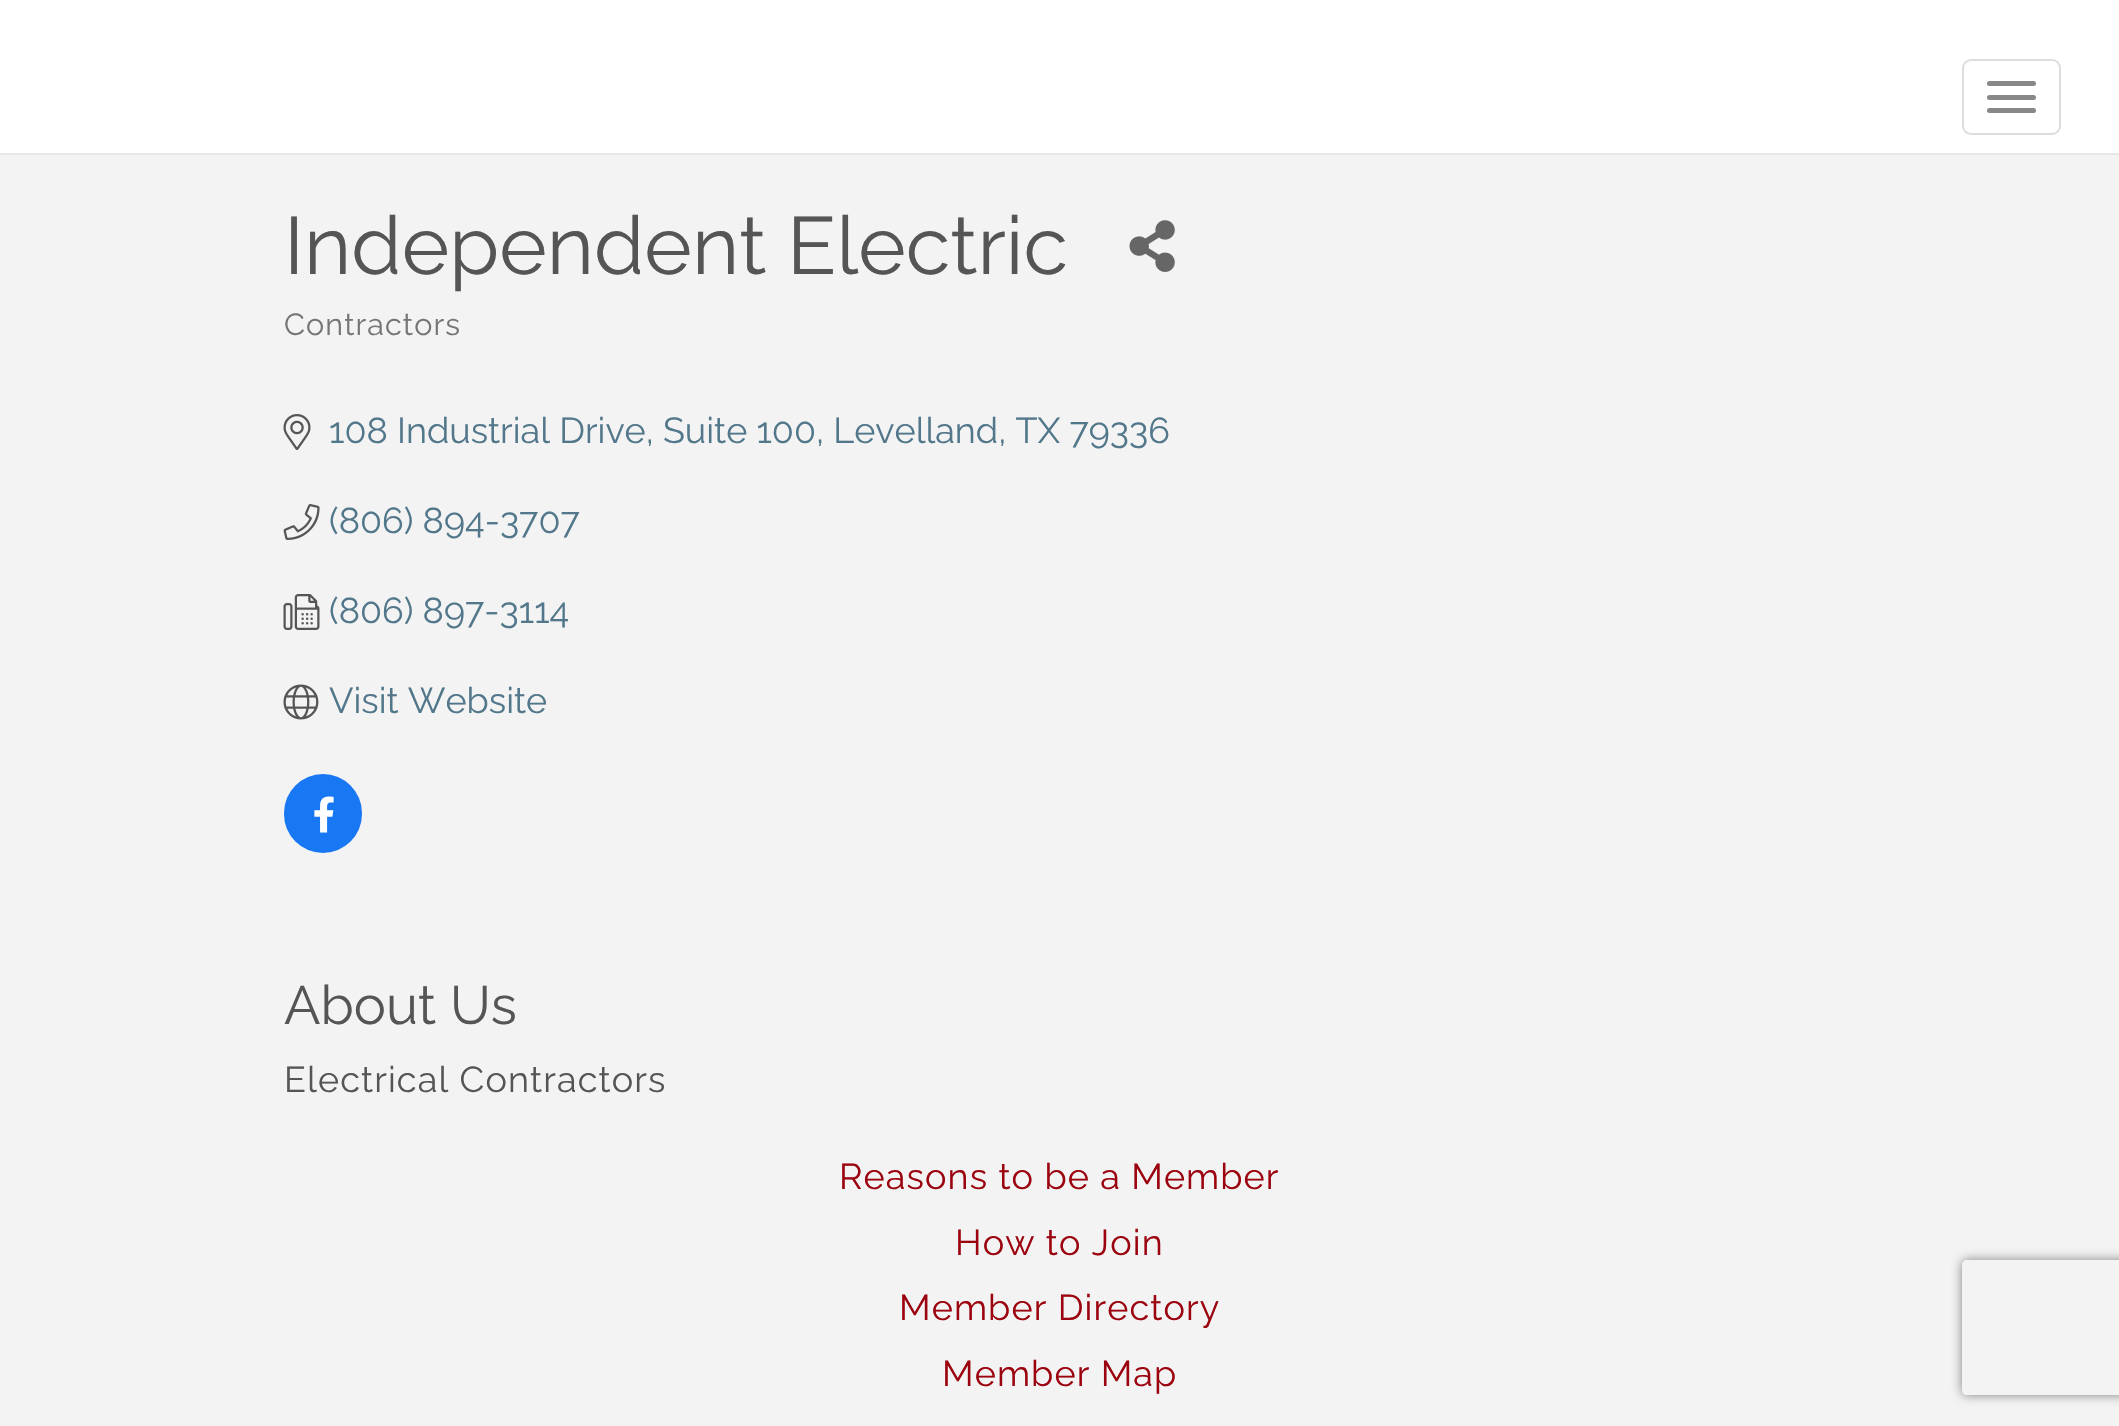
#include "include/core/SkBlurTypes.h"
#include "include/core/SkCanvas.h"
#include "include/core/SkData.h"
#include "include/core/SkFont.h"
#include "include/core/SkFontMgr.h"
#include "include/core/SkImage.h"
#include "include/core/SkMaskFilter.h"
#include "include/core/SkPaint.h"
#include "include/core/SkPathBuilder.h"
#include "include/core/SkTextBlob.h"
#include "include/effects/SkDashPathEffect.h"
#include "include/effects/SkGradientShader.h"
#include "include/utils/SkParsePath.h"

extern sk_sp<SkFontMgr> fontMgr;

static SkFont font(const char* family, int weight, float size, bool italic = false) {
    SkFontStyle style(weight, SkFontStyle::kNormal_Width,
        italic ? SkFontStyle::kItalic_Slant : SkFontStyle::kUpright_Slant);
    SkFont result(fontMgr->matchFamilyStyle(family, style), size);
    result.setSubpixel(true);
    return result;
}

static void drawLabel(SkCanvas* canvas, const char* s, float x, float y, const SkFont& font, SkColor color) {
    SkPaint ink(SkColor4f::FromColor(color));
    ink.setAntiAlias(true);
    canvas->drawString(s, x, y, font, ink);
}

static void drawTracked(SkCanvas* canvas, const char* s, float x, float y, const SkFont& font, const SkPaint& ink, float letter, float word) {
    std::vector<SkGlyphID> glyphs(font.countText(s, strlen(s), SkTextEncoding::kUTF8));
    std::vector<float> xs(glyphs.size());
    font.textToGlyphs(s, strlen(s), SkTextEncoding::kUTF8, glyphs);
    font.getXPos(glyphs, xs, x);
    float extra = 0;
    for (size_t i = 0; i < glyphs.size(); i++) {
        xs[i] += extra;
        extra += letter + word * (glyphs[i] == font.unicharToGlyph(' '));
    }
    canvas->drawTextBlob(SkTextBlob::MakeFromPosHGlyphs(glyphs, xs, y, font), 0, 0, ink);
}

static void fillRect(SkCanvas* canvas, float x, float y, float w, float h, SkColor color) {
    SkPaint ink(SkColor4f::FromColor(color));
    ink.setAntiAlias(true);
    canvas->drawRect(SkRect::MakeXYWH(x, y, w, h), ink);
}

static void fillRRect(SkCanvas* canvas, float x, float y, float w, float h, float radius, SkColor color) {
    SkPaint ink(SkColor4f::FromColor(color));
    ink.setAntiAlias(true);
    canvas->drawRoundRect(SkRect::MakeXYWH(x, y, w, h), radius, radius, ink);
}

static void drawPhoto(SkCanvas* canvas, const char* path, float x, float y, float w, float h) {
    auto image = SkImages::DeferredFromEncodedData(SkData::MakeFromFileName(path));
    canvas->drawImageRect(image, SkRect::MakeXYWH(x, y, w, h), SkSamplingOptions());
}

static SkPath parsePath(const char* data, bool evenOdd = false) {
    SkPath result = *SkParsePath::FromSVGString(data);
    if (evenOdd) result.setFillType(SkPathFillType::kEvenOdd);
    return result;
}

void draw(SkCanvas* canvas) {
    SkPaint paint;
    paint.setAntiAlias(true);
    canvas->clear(0xFFF3F3F3);
    fillRect(canvas, 0, 0, 2119, 153, 0xFFFFFFFF);
    fillRect(canvas, 0, 153, 2119, 2, 0xFFE6E6E6);
    paint.setStroke(true);
    paint.setStrokeWidth(2);
    paint.setColor(0xFFDDDDDD);
    canvas->drawRoundRect(SkRect::MakeXYWH(1963, 60, 97, 74), 8, 8, paint);
    fillRRect(canvas, 1987, 81, 49, 5, 2.5f, 0xFF888888);
    fillRRect(canvas, 1987, 95, 49, 5, 2.5f, 0xFF888888);
    fillRRect(canvas, 1987, 108, 49, 5, 2.5f, 0xFF888888);
    SkFont font1 = font("Raleway", 400, 81);
    drawLabel(canvas, "Independent Electric", 284, 274, font1, 0xFF555555);
    drawPhoto(canvas, "assets/img1.png", 1129, 220, 46, 52);
    SkFont font2 = font("Raleway", 400, 30.5f);
    paint.setStroke(false);
    paint.setColor(0xFF757575);
    drawTracked(canvas, "Contractors", 284, 335, font2, paint, 1.1f, 0);
    drawPhoto(canvas, "assets/img2.png", 283, 414, 28, 36);
    SkFont font3 = font("Raleway", 400, 36);
    drawLabel(canvas, "108 Industrial Drive, Suite 100, Levelland, TX 79336", 329, 443, font3, 0xFF52778B);
    drawPhoto(canvas, "assets/img3.png", 283, 504, 37, 36);
    drawLabel(canvas, "(806) 894-3707", 329, 533, font3, 0xFF52778B);
    drawPhoto(canvas, "assets/img4.png", 283, 594, 37, 36);
    drawLabel(canvas, "(806) 897-3114", 329, 623, font3, 0xFF52778B);
    drawPhoto(canvas, "assets/img5.png", 283, 684, 36, 36);
    drawLabel(canvas, "Visit Website", 329, 713, font3, 0xFF52778B);
    fillRRect(canvas, 284, 774, 78, 79, 39, 0xFF1877F2);
    drawPhoto(canvas, "assets/img6.png", 314, 796, 20, 37);
    SkFont font4 = font("Raleway", 400, 54);
    drawLabel(canvas, "About Us", 284, 1024, font4, 0xFF555555);
    paint.setColor(0xFF555555);
    drawTracked(canvas, "Electrical Contractors", 284, 1092, font3, paint, 1.1f, 0);
    paint.setColor(0xFF9B030F);
    drawTracked(canvas, "Reasons to be a Member", 839, 1189, font3, paint, 1.1f, 0);
    drawTracked(canvas, "How to Join", 955, 1255, font3, paint, 1.1f, 0);
    drawTracked(canvas, "Member Directory", 899, 1320, font3, paint, 1.1f, 0);
    drawTracked(canvas, "Member Map", 942, 1386, font3, paint, 1.1f, 0);
    canvas->save();
    canvas->clipPath(parsePath("M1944 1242H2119V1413H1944ZM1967 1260H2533C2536 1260 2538 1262 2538 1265V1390C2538 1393 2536 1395 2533 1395H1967C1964 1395 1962 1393 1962 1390V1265C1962 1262 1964 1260 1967 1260Z", true), true);
    paint.setColor(0xFF808080);
    paint.setMaskFilter(SkMaskFilter::MakeBlur(kNormal_SkBlurStyle, 5.5f));
    canvas->drawRoundRect(SkRect::MakeXYWH(1962, 1260, 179, 135), 5, 5, paint);
    paint.setMaskFilter(nullptr);
    canvas->restore();
}
